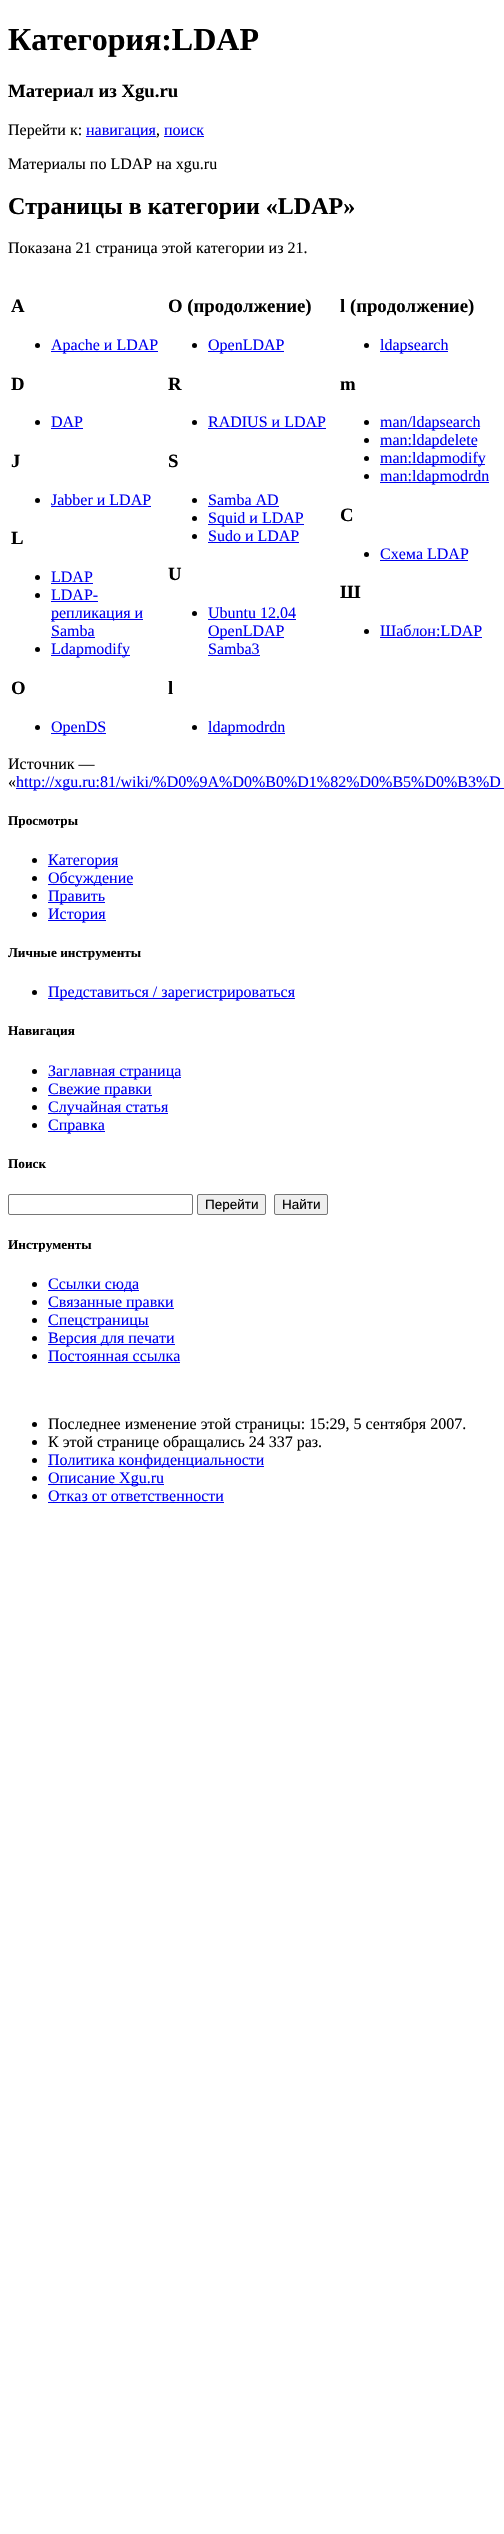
#include "include/core/SkBlurTypes.h"
#include "include/core/SkCanvas.h"
#include "include/core/SkData.h"
#include "include/core/SkFont.h"
#include "include/core/SkFontMgr.h"
#include "include/core/SkImage.h"
#include "include/core/SkMaskFilter.h"
#include "include/core/SkPaint.h"
#include "include/core/SkPathBuilder.h"
#include "include/core/SkTextBlob.h"
#include "include/effects/SkDashPathEffect.h"
#include "include/effects/SkGradientShader.h"
#include "include/utils/SkParsePath.h"

extern sk_sp<SkFontMgr> fontMgr;

static SkFont font(const char* family, int weight, float size, bool italic = false) {
    SkFontStyle style(weight, SkFontStyle::kNormal_Width,
        italic ? SkFontStyle::kItalic_Slant : SkFontStyle::kUpright_Slant);
    SkFont result(fontMgr->matchFamilyStyle(family, style), size);
    result.setSubpixel(true);
    return result;
}

static void drawLabel(SkCanvas* canvas, const char* s, float x, float y, const SkFont& font, SkColor color) {
    SkPaint ink(SkColor4f::FromColor(color));
    ink.setAntiAlias(true);
    canvas->drawString(s, x, y, font, ink);
}

static void fillRect(SkCanvas* canvas, float x, float y, float w, float h, SkColor color) {
    SkPaint ink(SkColor4f::FromColor(color));
    ink.setAntiAlias(true);
    canvas->drawRect(SkRect::MakeXYWH(x, y, w, h), ink);
}

void draw(SkCanvas* canvas) {
    SkPaint paint;
    paint.setAntiAlias(true);
    canvas->clear(0xFFFFFFFF);
    SkFont font1 = font("Liberation Serif", 700, 32);
    drawLabel(canvas, "Категория:LDAP", 8, 50, font1, 0xFF000000);
    SkFont font2 = font("Liberation Serif", 700, 18.75f);
    drawLabel(canvas, "Материал из Xgu.ru", 8, 97, font2, 0xFF000000);
    SkFont font3 = font("Liberation Serif", 400, 16);
    drawLabel(canvas, "Перейти к:", 8, 135, font3, 0xFF000000);
    fillRect(canvas, 86, 136, 70, 1, 0xFF0000EE);
    drawLabel(canvas, "навигация", 86, 135, font3, 0xFF0000EE);
    drawLabel(canvas, ",", 156, 135, font3, 0xFF000000);
    drawLabel(canvas, "поиск", 164, 135, font3, 0xFF0000EE);
    fillRect(canvas, 164, 136, 40, 1, 0xFF0000EE);
    drawLabel(canvas, "Материалы по LDAP на xgu.ru", 8, 169, font3, 0xFF000000);
    SkFont font4 = font("Liberation Serif", 700, 24);
    drawLabel(canvas, "Страницы в категории «LDAP»", 8, 214, font4, 0xFF000000);
    drawLabel(canvas, "Показана 21 страница этой категории из 21.", 8, 253, font3, 0xFF000000);
    drawLabel(canvas, "A", 11, 312, font2, 0xFF000000);
    paint.setColor(0xFF000000);
    canvas->drawCircle(37.5f, 345.5f, 2.5f, paint);
    fillRect(canvas, 51, 351, 107, 1, 0xFF0000EE);
    drawLabel(canvas, "Apache и LDAP", 51, 350, font3, 0xFF0000EE);
    drawLabel(canvas, "D", 11, 390, font2, 0xFF000000);
    canvas->drawCircle(37.5f, 422.5f, 2.5f, paint);
    drawLabel(canvas, "DAP", 51, 427, font3, 0xFF0000EE);
    fillRect(canvas, 51, 428, 32, 1, 0xFF0000EE);
    drawLabel(canvas, "J", 11, 467, font2, 0xFF000000);
    canvas->drawCircle(37.5f, 500.5f, 2.5f, paint);
    drawLabel(canvas, "Jabber и LDAP", 51, 505, font3, 0xFF0000EE);
    fillRect(canvas, 51, 506, 100, 1, 0xFF0000EE);
    drawLabel(canvas, "L", 11, 544, font2, 0xFF000000);
    canvas->drawCircle(37.5f, 577.5f, 2.5f, paint);
    drawLabel(canvas, "LDAP", 51, 582, font3, 0xFF0000EE);
    fillRect(canvas, 51, 583, 42, 1, 0xFF0000EE);
    canvas->drawCircle(37.5f, 595.5f, 2.5f, paint);
    drawLabel(canvas, "LDAP-", 51, 600, font3, 0xFF0000EE);
    fillRect(canvas, 51, 601, 47, 1, 0xFF0000EE);
    fillRect(canvas, 51, 619, 92, 1, 0xFF0000EE);
    drawLabel(canvas, "репликация и", 51, 618, font3, 0xFF0000EE);
    drawLabel(canvas, "Samba", 51, 636, font3, 0xFF0000EE);
    fillRect(canvas, 51, 637, 44, 1, 0xFF0000EE);
    canvas->drawCircle(37.5f, 649.5f, 2.5f, paint);
    fillRect(canvas, 51, 655, 79, 1, 0xFF0000EE);
    drawLabel(canvas, "Ldapmodify", 51, 654, font3, 0xFF0000EE);
    drawLabel(canvas, "O", 11, 694, font2, 0xFF000000);
    canvas->drawCircle(37.5f, 727.5f, 2.5f, paint);
    fillRect(canvas, 51, 733, 55, 1, 0xFF0000EE);
    drawLabel(canvas, "OpenDS", 51, 732, font3, 0xFF0000EE);
    drawLabel(canvas, "O (продолжение)", 168, 312, font2, 0xFF000000);
    canvas->drawCircle(194.5f, 345.5f, 2.5f, paint);
    fillRect(canvas, 208, 351, 76, 1, 0xFF0000EE);
    drawLabel(canvas, "OpenLDAP", 208, 350, font3, 0xFF0000EE);
    drawLabel(canvas, "R", 168, 390, font2, 0xFF000000);
    canvas->drawCircle(194.5f, 422.5f, 2.5f, paint);
    drawLabel(canvas, "RADIUS и LDAP", 208, 427, font3, 0xFF0000EE);
    fillRect(canvas, 208, 428, 118, 1, 0xFF0000EE);
    drawLabel(canvas, "S", 168, 467, font2, 0xFF000000);
    canvas->drawCircle(194.5f, 500.5f, 2.5f, paint);
    drawLabel(canvas, "Samba AD", 208, 505, font3, 0xFF0000EE);
    fillRect(canvas, 208, 506, 71, 1, 0xFF0000EE);
    canvas->drawCircle(194.5f, 518.5f, 2.5f, paint);
    fillRect(canvas, 208, 524, 96, 1, 0xFF0000EE);
    drawLabel(canvas, "Squid и LDAP", 208, 523, font3, 0xFF0000EE);
    canvas->drawCircle(194.5f, 536.5f, 2.5f, paint);
    drawLabel(canvas, "Sudo и LDAP", 208, 541, font3, 0xFF0000EE);
    fillRect(canvas, 208, 542, 91, 1, 0xFF0000EE);
    drawLabel(canvas, "U", 168, 580, font2, 0xFF000000);
    canvas->drawCircle(194.5f, 613.5f, 2.5f, paint);
    drawLabel(canvas, "Ubuntu 12.04", 208, 618, font3, 0xFF0000EE);
    fillRect(canvas, 208, 619, 88, 1, 0xFF0000EE);
    fillRect(canvas, 208, 637, 76, 1, 0xFF0000EE);
    drawLabel(canvas, "OpenLDAP", 208, 636, font3, 0xFF0000EE);
    drawLabel(canvas, "Samba3", 208, 654, font3, 0xFF0000EE);
    fillRect(canvas, 208, 655, 52, 1, 0xFF0000EE);
    drawLabel(canvas, "l", 168, 694, font2, 0xFF000000);
    canvas->drawCircle(194.5f, 727.5f, 2.5f, paint);
    fillRect(canvas, 208, 733, 77, 1, 0xFF0000EE);
    drawLabel(canvas, "ldapmodrdn", 208, 732, font3, 0xFF0000EE);
    drawLabel(canvas, "l (продолжение)", 340, 312, font2, 0xFF000000);
    canvas->drawCircle(366.5f, 345.5f, 2.5f, paint);
    fillRect(canvas, 380, 351, 68, 1, 0xFF0000EE);
    drawLabel(canvas, "ldapsearch", 380, 350, font3, 0xFF0000EE);
    drawLabel(canvas, "m", 340, 390, font2, 0xFF000000);
    canvas->drawCircle(366.5f, 422.5f, 2.5f, paint);
    fillRect(canvas, 380, 428, 100, 1, 0xFF0000EE);
    drawLabel(canvas, "man/ldapsearch", 380, 427, font3, 0xFF0000EE);
    canvas->drawCircle(366.5f, 440.5f, 2.5f, paint);
    fillRect(canvas, 380, 446, 97, 1, 0xFF0000EE);
    drawLabel(canvas, "man:ldapdelete", 380, 445, font3, 0xFF0000EE);
    canvas->drawCircle(366.5f, 458.5f, 2.5f, paint);
    fillRect(canvas, 380, 464, 105, 1, 0xFF0000EE);
    drawLabel(canvas, "man:ldapmodify", 380, 463, font3, 0xFF0000EE);
    canvas->drawCircle(366.5f, 476.5f, 2.5f, paint);
    fillRect(canvas, 380, 482, 109, 1, 0xFF0000EE);
    drawLabel(canvas, "man:ldapmodrdn", 380, 481, font3, 0xFF0000EE);
    drawLabel(canvas, "С", 340, 521, font2, 0xFF000000);
    canvas->drawCircle(366.5f, 554.5f, 2.5f, paint);
    drawLabel(canvas, "Схема LDAP", 380, 559, font3, 0xFF0000EE);
    fillRect(canvas, 380, 560, 88, 1, 0xFF0000EE);
    drawLabel(canvas, "Ш", 340, 598, font2, 0xFF000000);
    canvas->drawCircle(366.5f, 631.5f, 2.5f, paint);
    drawLabel(canvas, "Шаблон:LDAP", 380, 636, font3, 0xFF0000EE);
    fillRect(canvas, 380, 637, 102, 1, 0xFF0000EE);
    drawLabel(canvas, "Источник —", 8, 769, font3, 0xFF000000);
    drawLabel(canvas, "«", 8, 787, font3, 0xFF000000);
    fillRect(canvas, 16, 788, 488, 1, 0xFF0000EE);
    drawLabel(canvas, "http://xgu.ru:81/wiki/%D0%9A%D0%B0%D1%82%D0%B5%D0%B3%D", 16, 787, font3, 0xFF0000EE);
    SkFont font5 = font("Liberation Serif", 700, 13.25f);
    drawLabel(canvas, "Просмотры", 8, 825, font5, 0xFF000000);
    canvas->drawCircle(34.5f, 860.5f, 2.5f, paint);
    fillRect(canvas, 48, 866, 70, 1, 0xFF0000EE);
    drawLabel(canvas, "Категория", 48, 865, font3, 0xFF0000EE);
    canvas->drawCircle(34.5f, 878.5f, 2.5f, paint);
    fillRect(canvas, 48, 884, 85, 1, 0xFF0000EE);
    drawLabel(canvas, "Обсуждение", 48, 883, font3, 0xFF0000EE);
    canvas->drawCircle(34.5f, 896.5f, 2.5f, paint);
    fillRect(canvas, 48, 902, 57, 1, 0xFF0000EE);
    drawLabel(canvas, "Править", 48, 901, font3, 0xFF0000EE);
    canvas->drawCircle(34.5f, 914.5f, 2.5f, paint);
    fillRect(canvas, 48, 920, 58, 1, 0xFF0000EE);
    drawLabel(canvas, "История", 48, 919, font3, 0xFF0000EE);
    drawLabel(canvas, "Личные инструменты", 8, 957, font5, 0xFF000000);
    canvas->drawCircle(34.5f, 992.5f, 2.5f, paint);
    fillRect(canvas, 48, 998, 247, 1, 0xFF0000EE);
    drawLabel(canvas, "Представиться / зарегистрироваться", 48, 997, font3, 0xFF0000EE);
    drawLabel(canvas, "Навигация", 8, 1035, font5, 0xFF000000);
    canvas->drawCircle(34.5f, 1071.5f, 2.5f, paint);
    fillRect(canvas, 48, 1077, 133, 1, 0xFF0000EE);
    drawLabel(canvas, "Заглавная страница", 48, 1076, font3, 0xFF0000EE);
    canvas->drawCircle(34.5f, 1089.5f, 2.5f, paint);
    fillRect(canvas, 48, 1095, 104, 1, 0xFF0000EE);
    drawLabel(canvas, "Свежие правки", 48, 1094, font3, 0xFF0000EE);
    canvas->drawCircle(34.5f, 1107.5f, 2.5f, paint);
    fillRect(canvas, 48, 1113, 120, 1, 0xFF0000EE);
    drawLabel(canvas, "Случайная статья", 48, 1112, font3, 0xFF0000EE);
    canvas->drawCircle(34.5f, 1125.5f, 2.5f, paint);
    fillRect(canvas, 48, 1131, 57, 1, 0xFF0000EE);
    drawLabel(canvas, "Справка", 48, 1130, font3, 0xFF0000EE);
    drawLabel(canvas, "Поиск", 8, 1168, font5, 0xFF000000);
    paint.setStroke(true);
    paint.setStrokeWidth(1);
    paint.setColor(0xFF767676);
    canvas->drawRoundRect(SkRect::MakeXYWH(8.5f, 1194.5f, 184, 20), 1.5f, 1.5f, paint);
    paint.setStroke(false);
    paint.setColor(0xFFEFEFEF);
    canvas->drawRoundRect(SkRect::MakeXYWH(197.5f, 1194.5f, 68, 20), 1.5f, 1.5f, paint);
    paint.setStroke(true);
    paint.setColor(0xFF767676);
    canvas->drawRoundRect(SkRect::MakeXYWH(197.5f, 1194.5f, 68, 20), 1.5f, 1.5f, paint);
    SkFont font6 = font("Liberation Sans", 400, 13.5f);
    drawLabel(canvas, "Перейти", 205, 1209, font6, 0xFF000000);
    paint.setStroke(false);
    paint.setColor(0xFFEFEFEF);
    canvas->drawRoundRect(SkRect::MakeXYWH(274.5f, 1194.5f, 53, 20), 1.5f, 1.5f, paint);
    paint.setStroke(true);
    paint.setColor(0xFF767676);
    canvas->drawRoundRect(SkRect::MakeXYWH(274.5f, 1194.5f, 53, 20), 1.5f, 1.5f, paint);
    drawLabel(canvas, "Найти", 282, 1209, font6, 0xFF000000);
    drawLabel(canvas, "Инструменты", 8, 1249, font5, 0xFF000000);
    paint.setStroke(false);
    paint.setColor(0xFF000000);
    canvas->drawCircle(34.5f, 1284.5f, 2.5f, paint);
    fillRect(canvas, 48, 1290, 91, 1, 0xFF0000EE);
    drawLabel(canvas, "Ссылки сюда", 48, 1289, font3, 0xFF0000EE);
    canvas->drawCircle(34.5f, 1302.5f, 2.5f, paint);
    fillRect(canvas, 48, 1308, 126, 1, 0xFF0000EE);
    drawLabel(canvas, "Связанные правки", 48, 1307, font3, 0xFF0000EE);
    canvas->drawCircle(34.5f, 1320.5f, 2.5f, paint);
    fillRect(canvas, 48, 1326, 101, 1, 0xFF0000EE);
    drawLabel(canvas, "Спецстраницы", 48, 1325, font3, 0xFF0000EE);
    canvas->drawCircle(34.5f, 1338.5f, 2.5f, paint);
    fillRect(canvas, 48, 1344, 127, 1, 0xFF0000EE);
    drawLabel(canvas, "Версия для печати", 48, 1343, font3, 0xFF0000EE);
    canvas->drawCircle(34.5f, 1356.5f, 2.5f, paint);
    drawLabel(canvas, "Постоянная ссылка", 48, 1361, font3, 0xFF0000EE);
    fillRect(canvas, 48, 1362, 132, 1, 0xFF0000EE);
    canvas->drawCircle(34.5f, 1424.5f, 2.5f, paint);
    drawLabel(canvas, "Последнее изменение этой страницы: 15:29, 5 сентября 2007.", 48, 1429, font3, 0xFF000000);
    canvas->drawCircle(34.5f, 1442.5f, 2.5f, paint);
    drawLabel(canvas, "К этой странице обращались 24 337 раз.", 48, 1447, font3, 0xFF000000);
    canvas->drawCircle(34.5f, 1460.5f, 2.5f, paint);
    fillRect(canvas, 48, 1466, 216, 1, 0xFF0000EE);
    drawLabel(canvas, "Политика конфиденциальности", 48, 1465, font3, 0xFF0000EE);
    canvas->drawCircle(34.5f, 1478.5f, 2.5f, paint);
    fillRect(canvas, 48, 1484, 116, 1, 0xFF0000EE);
    drawLabel(canvas, "Описание Xgu.ru", 48, 1483, font3, 0xFF0000EE);
    canvas->drawCircle(34.5f, 1496.5f, 2.5f, paint);
    drawLabel(canvas, "Отказ от ответственности", 48, 1501, font3, 0xFF0000EE);
    fillRect(canvas, 48, 1502, 176, 1, 0xFF0000EE);
}
